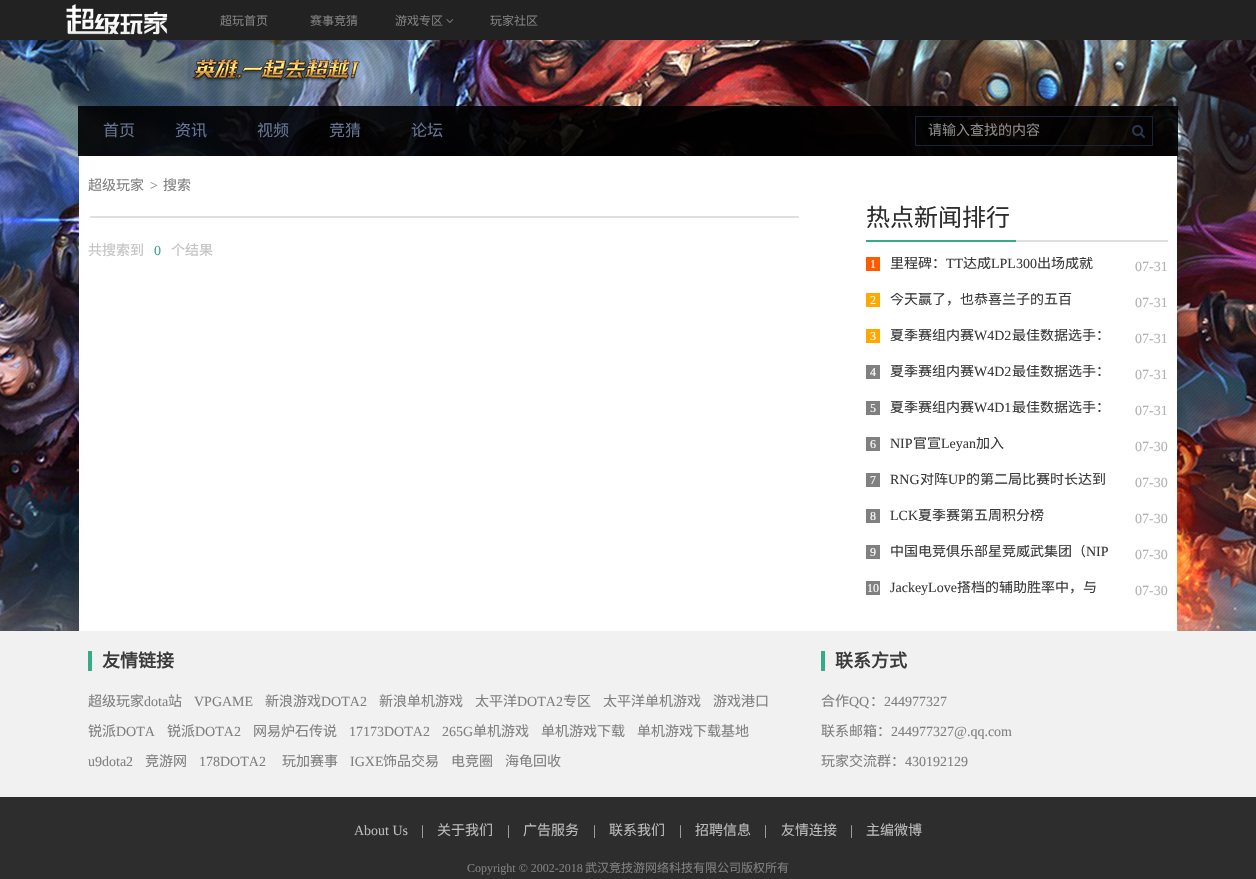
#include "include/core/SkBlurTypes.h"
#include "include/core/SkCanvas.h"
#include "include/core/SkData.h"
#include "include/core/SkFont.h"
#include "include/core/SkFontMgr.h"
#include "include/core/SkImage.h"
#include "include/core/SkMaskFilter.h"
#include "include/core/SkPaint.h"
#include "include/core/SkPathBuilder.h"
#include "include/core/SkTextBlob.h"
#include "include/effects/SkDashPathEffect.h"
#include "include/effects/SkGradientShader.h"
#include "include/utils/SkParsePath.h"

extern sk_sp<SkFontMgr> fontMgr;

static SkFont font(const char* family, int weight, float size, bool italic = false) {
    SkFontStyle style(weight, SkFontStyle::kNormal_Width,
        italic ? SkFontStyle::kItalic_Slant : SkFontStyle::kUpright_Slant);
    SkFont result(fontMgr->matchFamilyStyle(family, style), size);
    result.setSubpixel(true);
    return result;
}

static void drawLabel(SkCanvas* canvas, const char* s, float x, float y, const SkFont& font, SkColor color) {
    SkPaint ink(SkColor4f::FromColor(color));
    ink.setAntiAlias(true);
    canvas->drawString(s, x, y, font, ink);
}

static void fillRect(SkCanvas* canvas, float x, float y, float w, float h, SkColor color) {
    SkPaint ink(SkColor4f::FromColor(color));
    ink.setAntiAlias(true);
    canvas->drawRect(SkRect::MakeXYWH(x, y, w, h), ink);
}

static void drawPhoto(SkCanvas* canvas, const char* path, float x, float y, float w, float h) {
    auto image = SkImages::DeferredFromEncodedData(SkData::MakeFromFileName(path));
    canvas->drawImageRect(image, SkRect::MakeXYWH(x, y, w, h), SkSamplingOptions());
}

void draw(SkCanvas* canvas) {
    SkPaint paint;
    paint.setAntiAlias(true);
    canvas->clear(0xFFFFFFFF);
    fillRect(canvas, 0, 0, 1256, 40, 0xFF222222);
    drawPhoto(canvas, "assets/img1.png", 66, 4, 102, 31);
    SkFont font1 = font("Noto Sans CJK SC", 400, 12);
    drawLabel(canvas, "超玩首页", 220, 25, font1, 0xFF808080);
    drawLabel(canvas, "赛事竞猜", 310, 25, font1, 0xFF808080);
    drawLabel(canvas, "游戏专区", 395, 25, font1, 0xFF808080);
    drawPhoto(canvas, "assets/img2.png", 446, 19, 8, 4);
    drawLabel(canvas, "玩家社区", 490, 25, font1, 0xFF808080);
    drawPhoto(canvas, "assets/img3.png", 0, 40, 1256, 591);
    drawPhoto(canvas, "assets/img4.png", 78, 40, 1100, 66);
    drawPhoto(canvas, "assets/img5.png", 78, 106, 1100, 50);
    SkFont font2 = font("Noto Sans CJK SC", 400, 16);
    drawLabel(canvas, "首页", 103, 136, font2, 0xFF677491);
    drawLabel(canvas, "资讯", 175, 136, font2, 0xFF677491);
    drawLabel(canvas, "视频", 257, 136, font2, 0xFF677491);
    drawLabel(canvas, "竞猜", 329, 136, font2, 0xFF677491);
    drawLabel(canvas, "论坛", 411, 136, font2, 0xFF677491);
    paint.setStroke(true);
    paint.setStrokeWidth(1);
    paint.setColor(0xE61C263C);
    canvas->drawRect(SkRect::MakeXYWH(915.5f, 116.5f, 237, 29), paint);
    SkFont font3 = font("Noto Sans CJK SC", 400, 14);
    drawLabel(canvas, "请输入查找的内容", 928, 135, font3, 0xFF8B8A8A);
    drawPhoto(canvas, "assets/img6.png", 1132, 125, 13, 13);
    fillRect(canvas, 90, 216, 709, 2, 0xFFDFDFDD);
    drawLabel(canvas, "超级玩家", 88, 190, font3, 0xFF808080);
    SkFont font4 = font("Liberation Serif", 400, 14);
    drawLabel(canvas, ">", 150, 190, font4, 0xFF808080);
    drawLabel(canvas, "搜索", 163, 190, font3, 0xFF808080);
    drawLabel(canvas, "共搜索到", 88, 255, font3, 0xFFC1C1C1);
    drawLabel(canvas, "0", 154, 255, font4, 0xFF36AB87);
    drawLabel(canvas, "个结果", 171, 255, font3, 0xFFC1C1C1);
    fillRect(canvas, 1016, 240, 152, 2, 0xFFDFDFDD);
    fillRect(canvas, 866, 240, 150, 2, 0xFF36AB87);
    SkFont font5 = font("Noto Sans CJK SC", 400, 24);
    drawLabel(canvas, "热点新闻排行", 866, 226, font5, 0xFF2D2D2D);
    fillRect(canvas, 866, 257, 14, 14, 0xFFFF5A00);
    SkFont font6 = font("Liberation Serif", 400, 12);
    drawLabel(canvas, "1", 870, 268, font6, 0xFFFFFFFF);
    canvas->save();
    canvas->clipRect(SkRect::MakeXYWH(866, 257, 252, 14));
    drawLabel(canvas, "里程碑：", 890, 268, font3, 0xFF3B3B3B);
    canvas->restore();
    drawLabel(canvas, "TT", 946, 268, font4, 0xFF3B3B3B);
    canvas->save();
    canvas->clipRect(SkRect::MakeXYWH(866, 257, 252, 14));
    drawLabel(canvas, "达成", 963, 268, font3, 0xFF3B3B3B);
    canvas->restore();
    drawLabel(canvas, "LPL300", 991, 268, font4, 0xFF3B3B3B);
    canvas->save();
    canvas->clipRect(SkRect::MakeXYWH(866, 257, 252, 14));
    drawLabel(canvas, "出场成就", 1037, 268, font3, 0xFF3B3B3B);
    canvas->restore();
    drawLabel(canvas, "07-31", 1135, 271, font4, 0xFFB2B2B2);
    fillRect(canvas, 866, 293, 14, 14, 0xFFFFA800);
    drawLabel(canvas, "2", 870, 304, font6, 0xFFFFFFFF);
    canvas->save();
    canvas->clipRect(SkRect::MakeXYWH(866, 293, 252, 14));
    drawLabel(canvas, "今天赢了，也恭喜兰子的五百", 890, 304, font3, 0xFF3B3B3B);
    canvas->restore();
    drawLabel(canvas, "07-31", 1135, 307, font4, 0xFFB2B2B2);
    fillRect(canvas, 866, 329, 14, 14, 0xFFFFA800);
    drawLabel(canvas, "3", 870, 340, font6, 0xFFFFFFFF);
    canvas->save();
    canvas->clipRect(SkRect::MakeXYWH(866, 329, 252, 14));
    drawLabel(canvas, "夏季赛组内赛", 890, 340, font3, 0xFF3B3B3B);
    canvas->restore();
    drawLabel(canvas, "W4D2", 974, 340, font4, 0xFF3B3B3B);
    canvas->save();
    canvas->clipRect(SkRect::MakeXYWH(866, 329, 252, 14));
    drawLabel(canvas, "最佳数据选手：", 1012, 340, font3, 0xFF3B3B3B);
    canvas->restore();
    drawLabel(canvas, "07-31", 1135, 343, font4, 0xFFB2B2B2);
    fillRect(canvas, 866, 365, 14, 14, 0xFF808080);
    drawLabel(canvas, "4", 870, 376, font6, 0xFFFFFFFF);
    canvas->save();
    canvas->clipRect(SkRect::MakeXYWH(866, 365, 252, 14));
    drawLabel(canvas, "夏季赛组内赛", 890, 376, font3, 0xFF3B3B3B);
    canvas->restore();
    drawLabel(canvas, "W4D2", 974, 376, font4, 0xFF3B3B3B);
    canvas->save();
    canvas->clipRect(SkRect::MakeXYWH(866, 365, 252, 14));
    drawLabel(canvas, "最佳数据选手：", 1012, 376, font3, 0xFF3B3B3B);
    canvas->restore();
    drawLabel(canvas, "07-31", 1135, 379, font4, 0xFFB2B2B2);
    fillRect(canvas, 866, 401, 14, 14, 0xFF808080);
    drawLabel(canvas, "5", 870, 412, font6, 0xFFFFFFFF);
    canvas->save();
    canvas->clipRect(SkRect::MakeXYWH(866, 401, 252, 14));
    drawLabel(canvas, "夏季赛组内赛", 890, 412, font3, 0xFF3B3B3B);
    canvas->restore();
    drawLabel(canvas, "W4D1", 974, 412, font4, 0xFF3B3B3B);
    canvas->save();
    canvas->clipRect(SkRect::MakeXYWH(866, 401, 252, 14));
    drawLabel(canvas, "最佳数据选手：", 1012, 412, font3, 0xFF3B3B3B);
    canvas->restore();
    drawLabel(canvas, "07-31", 1135, 415, font4, 0xFFB2B2B2);
    fillRect(canvas, 866, 437, 14, 14, 0xFF808080);
    drawLabel(canvas, "6", 870, 448, font6, 0xFFFFFFFF);
    drawLabel(canvas, "NIP", 890, 448, font4, 0xFF3B3B3B);
    canvas->save();
    canvas->clipRect(SkRect::MakeXYWH(866, 437, 252, 14));
    drawLabel(canvas, "官宣", 913, 448, font3, 0xFF3B3B3B);
    canvas->restore();
    drawLabel(canvas, "Leyan", 941, 448, font4, 0xFF3B3B3B);
    canvas->save();
    canvas->clipRect(SkRect::MakeXYWH(866, 437, 252, 14));
    drawLabel(canvas, "加入", 976, 448, font3, 0xFF3B3B3B);
    canvas->restore();
    drawLabel(canvas, "07-30", 1135, 451, font4, 0xFFB2B2B2);
    fillRect(canvas, 866, 473, 14, 14, 0xFF808080);
    drawLabel(canvas, "7", 870, 484, font6, 0xFFFFFFFF);
    drawLabel(canvas, "RNG", 890, 484, font4, 0xFF3B3B3B);
    canvas->save();
    canvas->clipRect(SkRect::MakeXYWH(866, 473, 252, 14));
    drawLabel(canvas, "对阵", 920, 484, font3, 0xFF3B3B3B);
    canvas->restore();
    drawLabel(canvas, "UP", 948, 484, font4, 0xFF3B3B3B);
    canvas->save();
    canvas->clipRect(SkRect::MakeXYWH(866, 473, 252, 14));
    drawLabel(canvas, "的第二局比赛时长达到", 966, 484, font3, 0xFF3B3B3B);
    canvas->restore();
    drawLabel(canvas, "07-30", 1135, 487, font4, 0xFFB2B2B2);
    fillRect(canvas, 866, 509, 14, 14, 0xFF808080);
    drawLabel(canvas, "8", 870, 520, font6, 0xFFFFFFFF);
    drawLabel(canvas, "LCK", 890, 520, font4, 0xFF3B3B3B);
    canvas->save();
    canvas->clipRect(SkRect::MakeXYWH(866, 509, 252, 14));
    drawLabel(canvas, "夏季赛第五周积分榜", 918, 520, font3, 0xFF3B3B3B);
    canvas->restore();
    drawLabel(canvas, "07-30", 1135, 523, font4, 0xFFB2B2B2);
    fillRect(canvas, 866, 545, 14, 14, 0xFF808080);
    drawLabel(canvas, "9", 870, 556, font6, 0xFFFFFFFF);
    canvas->save();
    canvas->clipRect(SkRect::MakeXYWH(866, 545, 252, 14));
    drawLabel(canvas, "中国电竞俱乐部星竞威武集团（", 890, 556, font3, 0xFF3B3B3B);
    canvas->restore();
    drawLabel(canvas, "NIP", 1086, 556, font4, 0xFF3B3B3B);
    drawLabel(canvas, "07-30", 1135, 559, font4, 0xFFB2B2B2);
    fillRect(canvas, 866, 581, 14, 14, 0xFF808080);
    drawLabel(canvas, "10", 867, 592, font6, 0xFFFFFFFF);
    drawLabel(canvas, "JackeyLove", 890, 592, font4, 0xFF3B3B3B);
    canvas->save();
    canvas->clipRect(SkRect::MakeXYWH(866, 581, 252, 14));
    drawLabel(canvas, "搭档的辅助胜率中，与", 957, 592, font3, 0xFF3B3B3B);
    canvas->restore();
    drawLabel(canvas, "07-30", 1135, 595, font4, 0xFFB2B2B2);
    fillRect(canvas, 0, 631, 1256, 166, 0xFFF1F1F1);
    fillRect(canvas, 88, 651, 4, 20, 0xFF36AB87);
    SkFont font7 = font("Noto Sans CJK SC", 700, 18);
    drawLabel(canvas, "友情链接", 102, 667, font7, 0xFF3B3B3B);
    drawLabel(canvas, "超级玩家", 88, 706, font3, 0xFF808080);
    drawLabel(canvas, "dota", 144, 706, font4, 0xFF808080);
    drawLabel(canvas, "站", 168, 706, font3, 0xFF808080);
    drawLabel(canvas, "VPGAME", 194, 706, font4, 0xFF808080);
    drawLabel(canvas, "新浪游戏", 265, 706, font3, 0xFF808080);
    drawLabel(canvas, "DOTA2", 321, 706, font4, 0xFF808080);
    drawLabel(canvas, "新浪单机游戏", 379, 706, font3, 0xFF808080);
    drawLabel(canvas, "太平洋", 475, 706, font3, 0xFF808080);
    drawLabel(canvas, "DOTA2", 517, 706, font4, 0xFF808080);
    drawLabel(canvas, "专区", 563, 706, font3, 0xFF808080);
    drawLabel(canvas, "太平洋单机游戏", 603, 706, font3, 0xFF808080);
    drawLabel(canvas, "游戏港口", 713, 706, font3, 0xFF808080);
    drawLabel(canvas, "锐派", 88, 736, font3, 0xFF808080);
    drawLabel(canvas, "DOTA", 116, 736, font4, 0xFF808080);
    drawLabel(canvas, "锐派", 167, 736, font3, 0xFF808080);
    drawLabel(canvas, "DOTA2", 195, 736, font4, 0xFF808080);
    drawLabel(canvas, "网易炉石传说", 253, 736, font3, 0xFF808080);
    drawLabel(canvas, "17173DOTA2", 349, 736, font4, 0xFF808080);
    drawLabel(canvas, "265G", 442, 736, font4, 0xFF808080);
    drawLabel(canvas, "单机游戏", 473, 736, font3, 0xFF808080);
    drawLabel(canvas, "单机游戏下载", 541, 736, font3, 0xFF808080);
    drawLabel(canvas, "单机游戏下载基地", 637, 736, font3, 0xFF808080);
    drawLabel(canvas, "u9dota2", 88, 766, font4, 0xFF808080);
    drawLabel(canvas, "竞游网", 145, 766, font3, 0xFF808080);
    drawLabel(canvas, "178DOTA2", 199, 766, font4, 0xFF808080);
    drawLabel(canvas, "玩加赛事", 282, 766, font3, 0xFF808080);
    drawLabel(canvas, "IGXE", 350, 766, font4, 0xFF808080);
    drawLabel(canvas, "饰品交易", 383, 766, font3, 0xFF808080);
    drawLabel(canvas, "电竞圈", 451, 766, font3, 0xFF808080);
    drawLabel(canvas, "海龟回收", 505, 766, font3, 0xFF808080);
    fillRect(canvas, 821, 651, 4, 20, 0xFF36AB87);
    drawLabel(canvas, "联系方式", 835, 667, font7, 0xFF3B3B3B);
    drawLabel(canvas, "合作", 821, 706, font3, 0xFF808080);
    drawLabel(canvas, "QQ", 849, 706, font4, 0xFF808080);
    drawLabel(canvas, "：", 870, 706, font3, 0xFF808080);
    drawLabel(canvas, "244977327", 884, 706, font4, 0xFF808080);
    drawLabel(canvas, "联系邮箱：", 821, 736, font3, 0xFF808080);
    drawLabel(canvas, "244977327@.qq.com", 891, 736, font4, 0xFF808080);
    drawLabel(canvas, "玩家交流群：", 821, 766, font3, 0xFF808080);
    drawLabel(canvas, "430192129", 905, 766, font4, 0xFF808080);
    fillRect(canvas, 0, 797, 1256, 82, 0xFF2D2D2D);
    drawLabel(canvas, "About Us", 354, 835, font4, 0xFFBBBBBB);
    drawLabel(canvas, "|", 421, 835, font4, 0xFFBBBBBB);
    drawLabel(canvas, "关于我们", 437, 835, font3, 0xFFBBBBBB);
    drawLabel(canvas, "|", 507, 835, font4, 0xFFBBBBBB);
    drawLabel(canvas, "广告服务", 523, 835, font3, 0xFFBBBBBB);
    drawLabel(canvas, "|", 593, 835, font4, 0xFFBBBBBB);
    drawLabel(canvas, "联系我们", 609, 835, font3, 0xFFBBBBBB);
    drawLabel(canvas, "|", 679, 835, font4, 0xFFBBBBBB);
    drawLabel(canvas, "招聘信息", 695, 835, font3, 0xFFBBBBBB);
    drawLabel(canvas, "|", 764, 835, font4, 0xFFBBBBBB);
    drawLabel(canvas, "友情连接", 781, 835, font3, 0xFFBBBBBB);
    drawLabel(canvas, "|", 850, 835, font4, 0xFFBBBBBB);
    drawLabel(canvas, "主编微博", 866, 835, font3, 0xFFBBBBBB);
    drawLabel(canvas, "Copyright © 2002-2018", 467, 872, font6, 0xFF808080);
    drawLabel(canvas, "武汉竞技游网络科技有限公司版权所有", 585, 872, font1, 0xFF808080);
}
